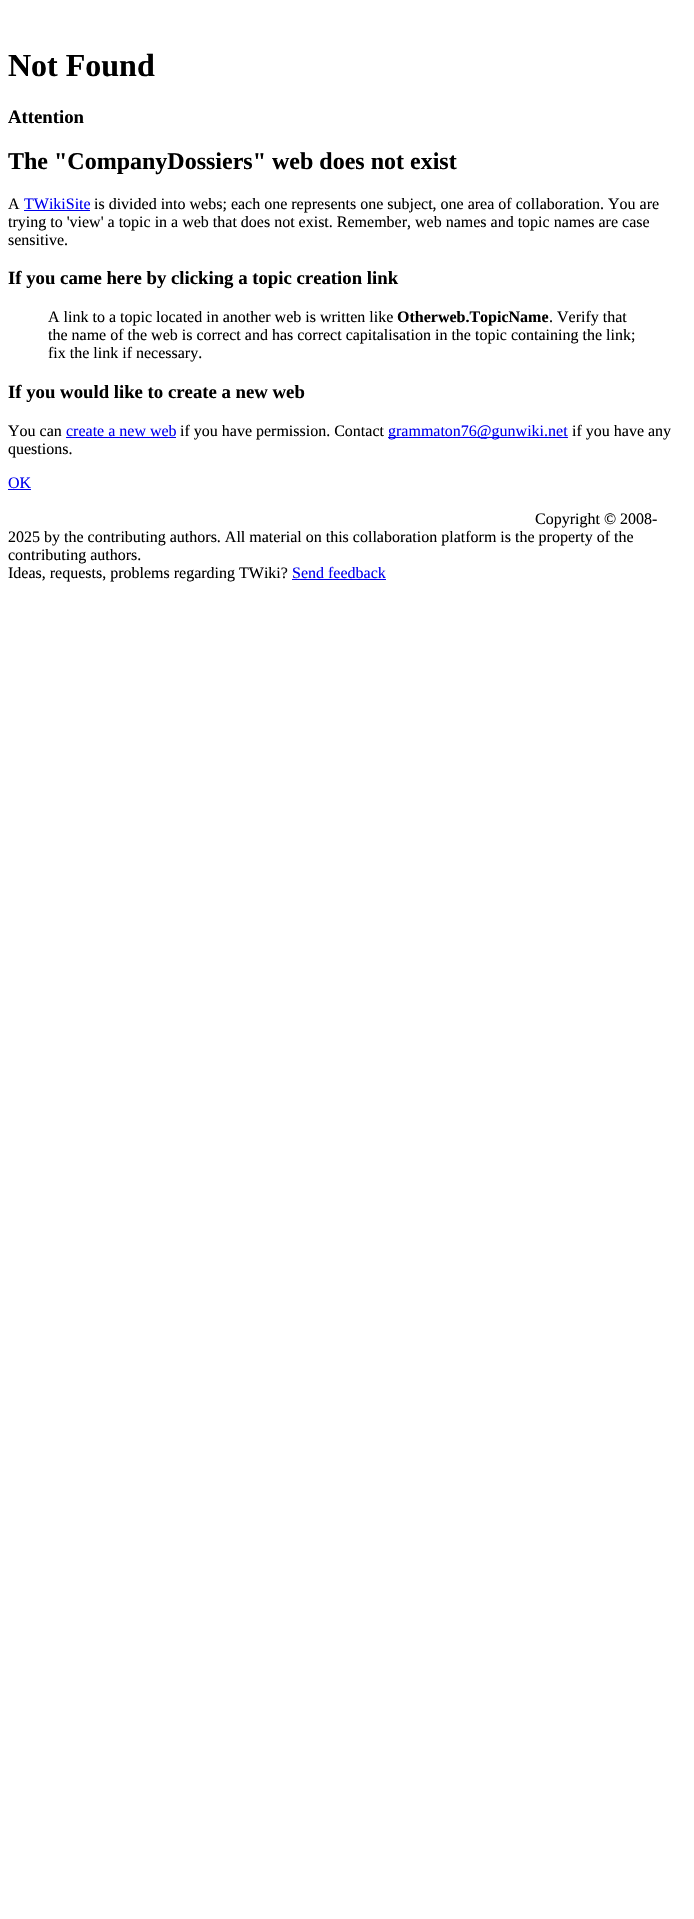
#include "include/core/SkBlurTypes.h"
#include "include/core/SkCanvas.h"
#include "include/core/SkData.h"
#include "include/core/SkFont.h"
#include "include/core/SkFontMgr.h"
#include "include/core/SkImage.h"
#include "include/core/SkMaskFilter.h"
#include "include/core/SkPaint.h"
#include "include/core/SkPathBuilder.h"
#include "include/core/SkTextBlob.h"
#include "include/effects/SkDashPathEffect.h"
#include "include/effects/SkGradientShader.h"
#include "include/utils/SkParsePath.h"

extern sk_sp<SkFontMgr> fontMgr;

static SkFont font(const char* family, int weight, float size, bool italic = false) {
    SkFontStyle style(weight, SkFontStyle::kNormal_Width,
        italic ? SkFontStyle::kItalic_Slant : SkFontStyle::kUpright_Slant);
    SkFont result(fontMgr->matchFamilyStyle(family, style), size);
    result.setSubpixel(true);
    return result;
}

static void drawLabel(SkCanvas* canvas, const char* s, float x, float y, const SkFont& font, SkColor color) {
    SkPaint ink(SkColor4f::FromColor(color));
    ink.setAntiAlias(true);
    canvas->drawString(s, x, y, font, ink);
}

static void fillRect(SkCanvas* canvas, float x, float y, float w, float h, SkColor color) {
    SkPaint ink(SkColor4f::FromColor(color));
    ink.setAntiAlias(true);
    canvas->drawRect(SkRect::MakeXYWH(x, y, w, h), ink);
}

void draw(SkCanvas* canvas) {
    SkPaint paint;
    paint.setAntiAlias(true);
    canvas->clear(0xFFFFFFFF);
    SkFont font1 = font("Liberation Serif", 700, 32);
    drawLabel(canvas, "Not Found", 8, 76, font1, 0xFF000000);
    SkFont font2 = font("Liberation Serif", 700, 18.75f);
    drawLabel(canvas, "Attention", 8, 123, font2, 0xFF000000);
    SkFont font3 = font("Liberation Serif", 700, 24);
    drawLabel(canvas, "The \"CompanyDossiers\" web does not exist", 8, 169, font3, 0xFF000000);
    SkFont font4 = font("Liberation Serif", 400, 16);
    drawLabel(canvas, "A", 8, 209, font4, 0xFF000000);
    drawLabel(canvas, "TWikiSite", 24, 209, font4, 0xFF0000EE);
    fillRect(canvas, 24, 210, 66, 1, 0xFF0000EE);
    drawLabel(canvas, "is divided into webs; each one represents one subject, one area of collaboration. You are", 94, 209, font4, 0xFF000000);
    drawLabel(canvas, "trying to 'view' a topic in a web that does not exist. Remember, web names and topic names are case", 8, 227, font4, 0xFF000000);
    drawLabel(canvas, "sensitive.", 8, 245, font4, 0xFF000000);
    drawLabel(canvas, "If you came here by clicking a topic creation link", 8, 284, font2, 0xFF000000);
    drawLabel(canvas, "A link to a topic located in another web is written like", 48, 322, font4, 0xFF000000);
    SkFont font5 = font("Liberation Serif", 700, 16);
    drawLabel(canvas, "Otherweb.TopicName", 397, 322, font5, 0xFF000000);
    drawLabel(canvas, ". Verify that", 549, 322, font4, 0xFF000000);
    drawLabel(canvas, "the name of the web is correct and has correct capitalisation in the topic containing the link;", 48, 340, font4, 0xFF000000);
    drawLabel(canvas, "fix the link if necessary.", 48, 358, font4, 0xFF000000);
    drawLabel(canvas, "If you would like to create a new web", 8, 398, font2, 0xFF000000);
    drawLabel(canvas, "You can", 8, 436, font4, 0xFF000000);
    drawLabel(canvas, "create a new web", 66, 436, font4, 0xFF0000EE);
    fillRect(canvas, 66, 437, 110, 1, 0xFF0000EE);
    drawLabel(canvas, "if you have permission. Contact", 180, 436, font4, 0xFF000000);
    fillRect(canvas, 388, 437, 180, 1, 0xFF0000EE);
    drawLabel(canvas, "grammaton76@gunwiki.net", 388, 436, font4, 0xFF0000EE);
    drawLabel(canvas, "if you have any", 572, 436, font4, 0xFF000000);
    drawLabel(canvas, "questions.", 8, 454, font4, 0xFF000000);
    drawLabel(canvas, "OK", 8, 488, font4, 0xFF0000EE);
    fillRect(canvas, 8, 489, 23, 1, 0xFF0000EE);
    drawLabel(canvas, "Copyright © 2008-", 535, 524, font4, 0xFF000000);
    drawLabel(canvas, "2025 by the contributing authors. All material on this collaboration platform is the property of the", 8, 542, font4, 0xFF000000);
    drawLabel(canvas, "contributing authors.", 8, 560, font4, 0xFF000000);
    drawLabel(canvas, "Ideas, requests, problems regarding TWiki?", 8, 578, font4, 0xFF000000);
    drawLabel(canvas, "Send feedback", 292, 578, font4, 0xFF0000EE);
    fillRect(canvas, 292, 579, 94, 1, 0xFF0000EE);
}
